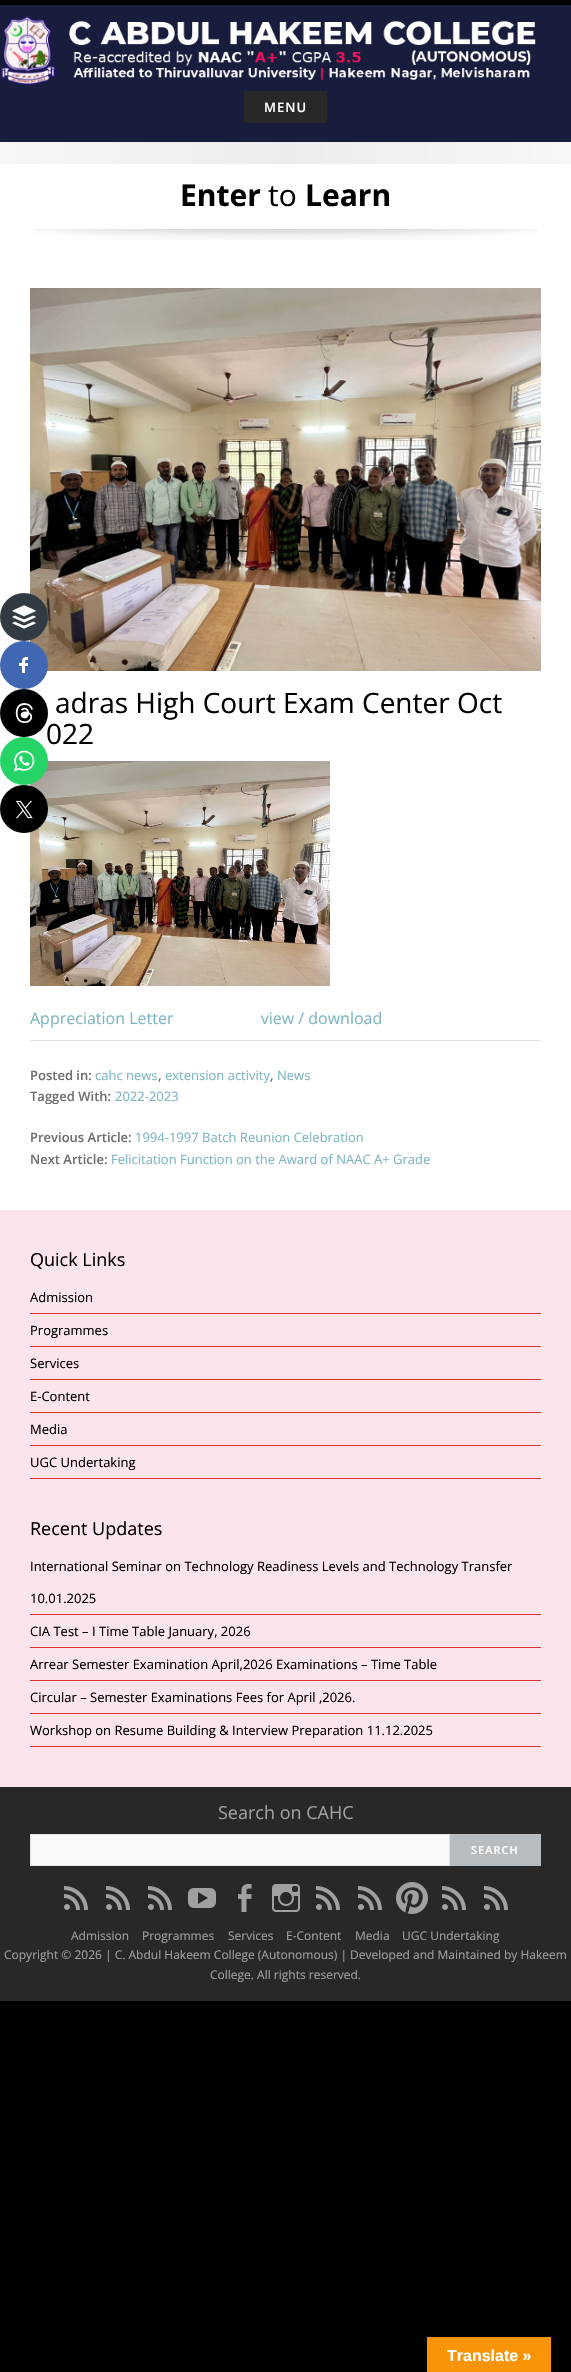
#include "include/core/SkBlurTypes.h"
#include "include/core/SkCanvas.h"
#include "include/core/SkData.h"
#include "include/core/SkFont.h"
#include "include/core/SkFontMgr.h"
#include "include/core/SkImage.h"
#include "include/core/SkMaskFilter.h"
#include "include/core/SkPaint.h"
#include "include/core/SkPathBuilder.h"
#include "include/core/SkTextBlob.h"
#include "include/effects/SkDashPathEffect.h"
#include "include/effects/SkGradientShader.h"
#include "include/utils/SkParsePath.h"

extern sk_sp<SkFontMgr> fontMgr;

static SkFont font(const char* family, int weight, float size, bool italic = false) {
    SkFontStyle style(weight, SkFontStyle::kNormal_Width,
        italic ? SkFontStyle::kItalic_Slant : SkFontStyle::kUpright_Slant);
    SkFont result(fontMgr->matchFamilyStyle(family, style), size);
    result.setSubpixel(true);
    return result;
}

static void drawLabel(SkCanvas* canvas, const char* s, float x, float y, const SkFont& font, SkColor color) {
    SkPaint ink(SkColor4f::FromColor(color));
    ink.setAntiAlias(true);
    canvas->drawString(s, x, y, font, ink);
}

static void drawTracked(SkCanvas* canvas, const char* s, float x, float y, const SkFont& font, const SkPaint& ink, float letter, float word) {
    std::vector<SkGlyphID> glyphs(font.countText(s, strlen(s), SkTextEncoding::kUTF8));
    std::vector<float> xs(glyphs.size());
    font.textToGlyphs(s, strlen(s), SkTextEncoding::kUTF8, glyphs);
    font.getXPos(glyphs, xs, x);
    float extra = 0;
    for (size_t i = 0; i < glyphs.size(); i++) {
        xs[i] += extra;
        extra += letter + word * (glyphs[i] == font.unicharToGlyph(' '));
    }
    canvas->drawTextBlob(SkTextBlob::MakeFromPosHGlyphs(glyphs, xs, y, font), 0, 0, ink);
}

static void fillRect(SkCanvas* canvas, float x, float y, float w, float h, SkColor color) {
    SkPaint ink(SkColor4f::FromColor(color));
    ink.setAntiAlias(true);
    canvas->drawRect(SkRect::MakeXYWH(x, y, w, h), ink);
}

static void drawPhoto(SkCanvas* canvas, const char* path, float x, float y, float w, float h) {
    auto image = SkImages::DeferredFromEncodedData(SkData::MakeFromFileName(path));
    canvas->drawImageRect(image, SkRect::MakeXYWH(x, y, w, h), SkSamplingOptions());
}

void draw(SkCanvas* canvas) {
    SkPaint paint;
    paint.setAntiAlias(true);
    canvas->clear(0xFF000000);
    fillRect(canvas, 0, 164, 571, 1046, 0xFFFFFFFF);
    fillRect(canvas, 0, 5, 571, 137, 0xFF191D3D);
    drawPhoto(canvas, "assets/img1.png", 1, 16, 535, 69);
    fillRect(canvas, 244, 91, 83, 32, 0xFF282828);
    SkFont font1 = font("Open Sans", 600, 13);
    paint.setColor(0xFFFFFFFF);
    drawTracked(canvas, "MENU", 264, 112, font1, paint, 1, 0);
    {
        const SkColor colors[] = {0xFFF7F7F7, 0xFFEBECED, 0xFFF7F7F7};
        const float stops[] = {0, 0.5f, 1};
        const SkPoint ends[] = {{0, 153}, {571, 153}};
        paint.setShader(SkGradientShader::MakeLinear(ends, colors, stops, 3, SkTileMode::kClamp));
        paint.setAlpha(255);
    }
    canvas->drawRect(SkRect::MakeXYWH(0, 142, 571, 22), paint);
    SkFont font2 = font("Open Sans", 700, 30);
    drawLabel(canvas, "Enter", 180, 206, font2, 0xFF000000);
    SkFont font3 = font("Open Sans", 400, 30);
    drawLabel(canvas, "to", 268, 206, font3, 0xFF000000);
    drawLabel(canvas, "Learn", 305, 206, font2, 0xFF000000);
    drawPhoto(canvas, "assets/img2.png", 33, 229, 505, 11);
    drawPhoto(canvas, "assets/img3.png", 30, 288, 511, 383);
    SkFont font4 = font("Open Sans", 400, 28);
    drawLabel(canvas, "adras High Court Exam Center Oct", 55, 713, font4, 0xFF000000);
    drawLabel(canvas, "022", 46, 744, font4, 0xFF000000);
    drawPhoto(canvas, "assets/img4.png", 30, 761, 300, 225);
    SkFont font5 = font("Open Sans", 400, 16);
    drawLabel(canvas, "Appreciation Letter                     view / download", 30, 1024, font5, 0xFF7CB6C2);
    fillRect(canvas, 30, 1040, 511, 1, 0xFFE0E0E0);
    drawLabel(canvas, "Posted in:", 30, 1080, font1, 0xFF6F6F6F);
    SkFont font6 = font("Open Sans", 400, 13);
    drawLabel(canvas, "cahc news", 95, 1080, font6, 0xFF7CB6C2);
    drawLabel(canvas, ",", 158, 1080, font1, 0xFF6F6F6F);
    drawLabel(canvas, "extension activity", 165, 1080, font6, 0xFF7CB6C2);
    drawLabel(canvas, ",", 270, 1080, font1, 0xFF6F6F6F);
    drawLabel(canvas, "News", 277, 1080, font6, 0xFF7CB6C2);
    drawLabel(canvas, "Tagged With:", 30, 1101, font1, 0xFF6F6F6F);
    drawLabel(canvas, "2022-2023", 115, 1101, font6, 0xFF7CB6C2);
    drawLabel(canvas, "Previous Article:", 30, 1142, font1, 0xFF6F6F6F);
    drawLabel(canvas, "1994-1997 Batch Reunion Celebration", 135, 1142, font6, 0xFF7CB6C2);
    drawLabel(canvas, "Next Article:", 30, 1164, font1, 0xFF6F6F6F);
    drawLabel(canvas, "Felicitation Function on the Award of NAAC A+ Grade", 111, 1164, font6, 0xFF7CB6C2);
    fillRect(canvas, 0, 1210, 571, 577, 0xFFFCE4EC);
    SkFont font7 = font("Open Sans", 400, 18);
    drawLabel(canvas, "Quick Links", 30, 1266, font7, 0xFF000000);
    fillRect(canvas, 30, 1313, 511, 1, 0xFFDD3333);
    drawLabel(canvas, "Admission", 30, 1302, font6, 0xFF000000);
    fillRect(canvas, 30, 1346, 511, 1, 0xFFDD3333);
    drawLabel(canvas, "Programmes", 30, 1335, font6, 0xFF000000);
    fillRect(canvas, 30, 1379, 511, 1, 0xFFDD3333);
    drawLabel(canvas, "Services", 30, 1368, font6, 0xFF000000);
    fillRect(canvas, 30, 1412, 511, 1, 0xFFDD3333);
    drawLabel(canvas, "E-Content", 30, 1401, font6, 0xFF000000);
    fillRect(canvas, 30, 1445, 511, 1, 0xFFDD3333);
    drawLabel(canvas, "Media", 30, 1434, font6, 0xFF000000);
    fillRect(canvas, 30, 1478, 511, 1, 0xFFDD3333);
    drawLabel(canvas, "UGC Undertaking", 30, 1467, font6, 0xFF000000);
    drawLabel(canvas, "Recent Updates", 30, 1535, font7, 0xFF000000);
    fillRect(canvas, 30, 1614, 511, 1, 0xFFDD3333);
    drawLabel(canvas, "International Seminar on Technology Readiness Levels and Technology Transfer", 30, 1571, font6, 0xFF000000);
    drawLabel(canvas, "10.01.2025", 30, 1603, font6, 0xFF000000);
    fillRect(canvas, 30, 1647, 511, 1, 0xFFDD3333);
    drawLabel(canvas, "CIA Test – I Time Table January, 2026", 30, 1636, font6, 0xFF000000);
    fillRect(canvas, 30, 1680, 511, 1, 0xFFDD3333);
    drawLabel(canvas, "Arrear Semester Examination April,2026 Examinations – Time Table", 30, 1669, font6, 0xFF000000);
    fillRect(canvas, 30, 1713, 511, 1, 0xFFDD3333);
    drawLabel(canvas, "Circular – Semester Examinations Fees for April ,2026.", 30, 1702, font6, 0xFF000000);
    fillRect(canvas, 30, 1746, 511, 1, 0xFFDD3333);
    drawLabel(canvas, "Workshop on Resume Building & Interview Preparation 11.12.2025", 30, 1735, font6, 0xFF000000);
    fillRect(canvas, 0, 1787, 571, 214, 0xFF282828);
    drawLabel(canvas, "Search on CAHC", 218, 1819, font7, 0xFFA0A0A0);
    paint.setShader(nullptr);
    paint.setColor(0xFFF9F9F9);
    canvas->drawRect(SkRect::MakeXYWH(30.5f, 1834.5f, 419, 31), paint);
    paint.setStroke(true);
    paint.setStrokeWidth(1);
    paint.setColor(0xFFE2E2E2);
    canvas->drawRect(SkRect::MakeXYWH(30.5f, 1834.5f, 419, 31), paint);
    fillRect(canvas, 450, 1834, 91, 32, 0xFFB7BCC1);
    SkFont font8 = font("Open Sans", 600, 11);
    paint.setStroke(false);
    paint.setColor(0xFFFFFFFF);
    drawTracked(canvas, "SEARCH", 471, 1854, font8, paint, 1, 0);
    drawPhoto(canvas, "assets/img5.png", 64, 1886, 24, 24);
    drawPhoto(canvas, "assets/img5.png", 106, 1886, 24, 24);
    drawPhoto(canvas, "assets/img5.png", 148, 1886, 24, 24);
    drawPhoto(canvas, "assets/img6.png", 188, 1888, 28, 20);
    drawPhoto(canvas, "assets/img7.png", 238, 1884, 14, 28);
    drawPhoto(canvas, "assets/img8.png", 272, 1884, 28, 28);
    drawPhoto(canvas, "assets/img5.png", 316, 1886, 24, 24);
    drawPhoto(canvas, "assets/img5.png", 358, 1886, 24, 24);
    drawPhoto(canvas, "assets/img9.png", 396, 1882, 32, 32);
    drawPhoto(canvas, "assets/img5.png", 442, 1886, 24, 24);
    drawPhoto(canvas, "assets/img5.png", 484, 1886, 24, 24);
    SkFont font9 = font("Open Sans", 400, 12);
    drawLabel(canvas, "Admission", 71, 1940, font9, 0xFFA0A0A0);
    drawLabel(canvas, "Programmes", 142, 1940, font9, 0xFFA0A0A0);
    drawLabel(canvas, "Services", 228, 1940, font9, 0xFFA0A0A0);
    drawLabel(canvas, "E-Content", 286, 1940, font9, 0xFFA0A0A0);
    drawLabel(canvas, "Media", 355, 1940, font9, 0xFFA0A0A0);
    drawLabel(canvas, "UGC Undertaking", 402, 1940, font9, 0xFFA0A0A0);
    drawLabel(canvas, "Copyright © 2026 | C. Abdul Hakeem College (Autonomous) | Developed and Maintained by Hakeem", 4, 1959, font9, 0xFFA0A0A0);
    drawLabel(canvas, "College. All rights reserved.", 210, 1979, font9, 0xFFA0A0A0);
    paint.setColor(0xFF323B43);
    canvas->drawCircle(24, 617, 24, paint);
    drawPhoto(canvas, "assets/img10.png", 12, 605, 24, 24);
    paint.setColor(0xFF4267B2);
    canvas->drawCircle(24, 665, 24, paint);
    drawPhoto(canvas, "assets/img11.png", 19, 657, 9, 16);
    paint.setColor(0xFF000000);
    canvas->drawCircle(24, 713, 24, paint);
    drawPhoto(canvas, "assets/img12.png", 15, 703, 18, 20);
    paint.setColor(0xFF25D366);
    canvas->drawCircle(24, 761, 24, paint);
    drawPhoto(canvas, "assets/img13.png", 13, 750, 22, 22);
    paint.setColor(0xFF000000);
    canvas->drawCircle(24, 809, 24, paint);
    drawPhoto(canvas, "assets/img14.png", 16, 800, 17, 19);
    fillRect(canvas, 427, 2337, 124, 35, 0xFFF89406);
    SkFont font10 = font("Liberation Sans", 700, 16);
    drawLabel(canvas, "Translate »", 447, 2361, font10, 0xFFFFFFFF);
}
